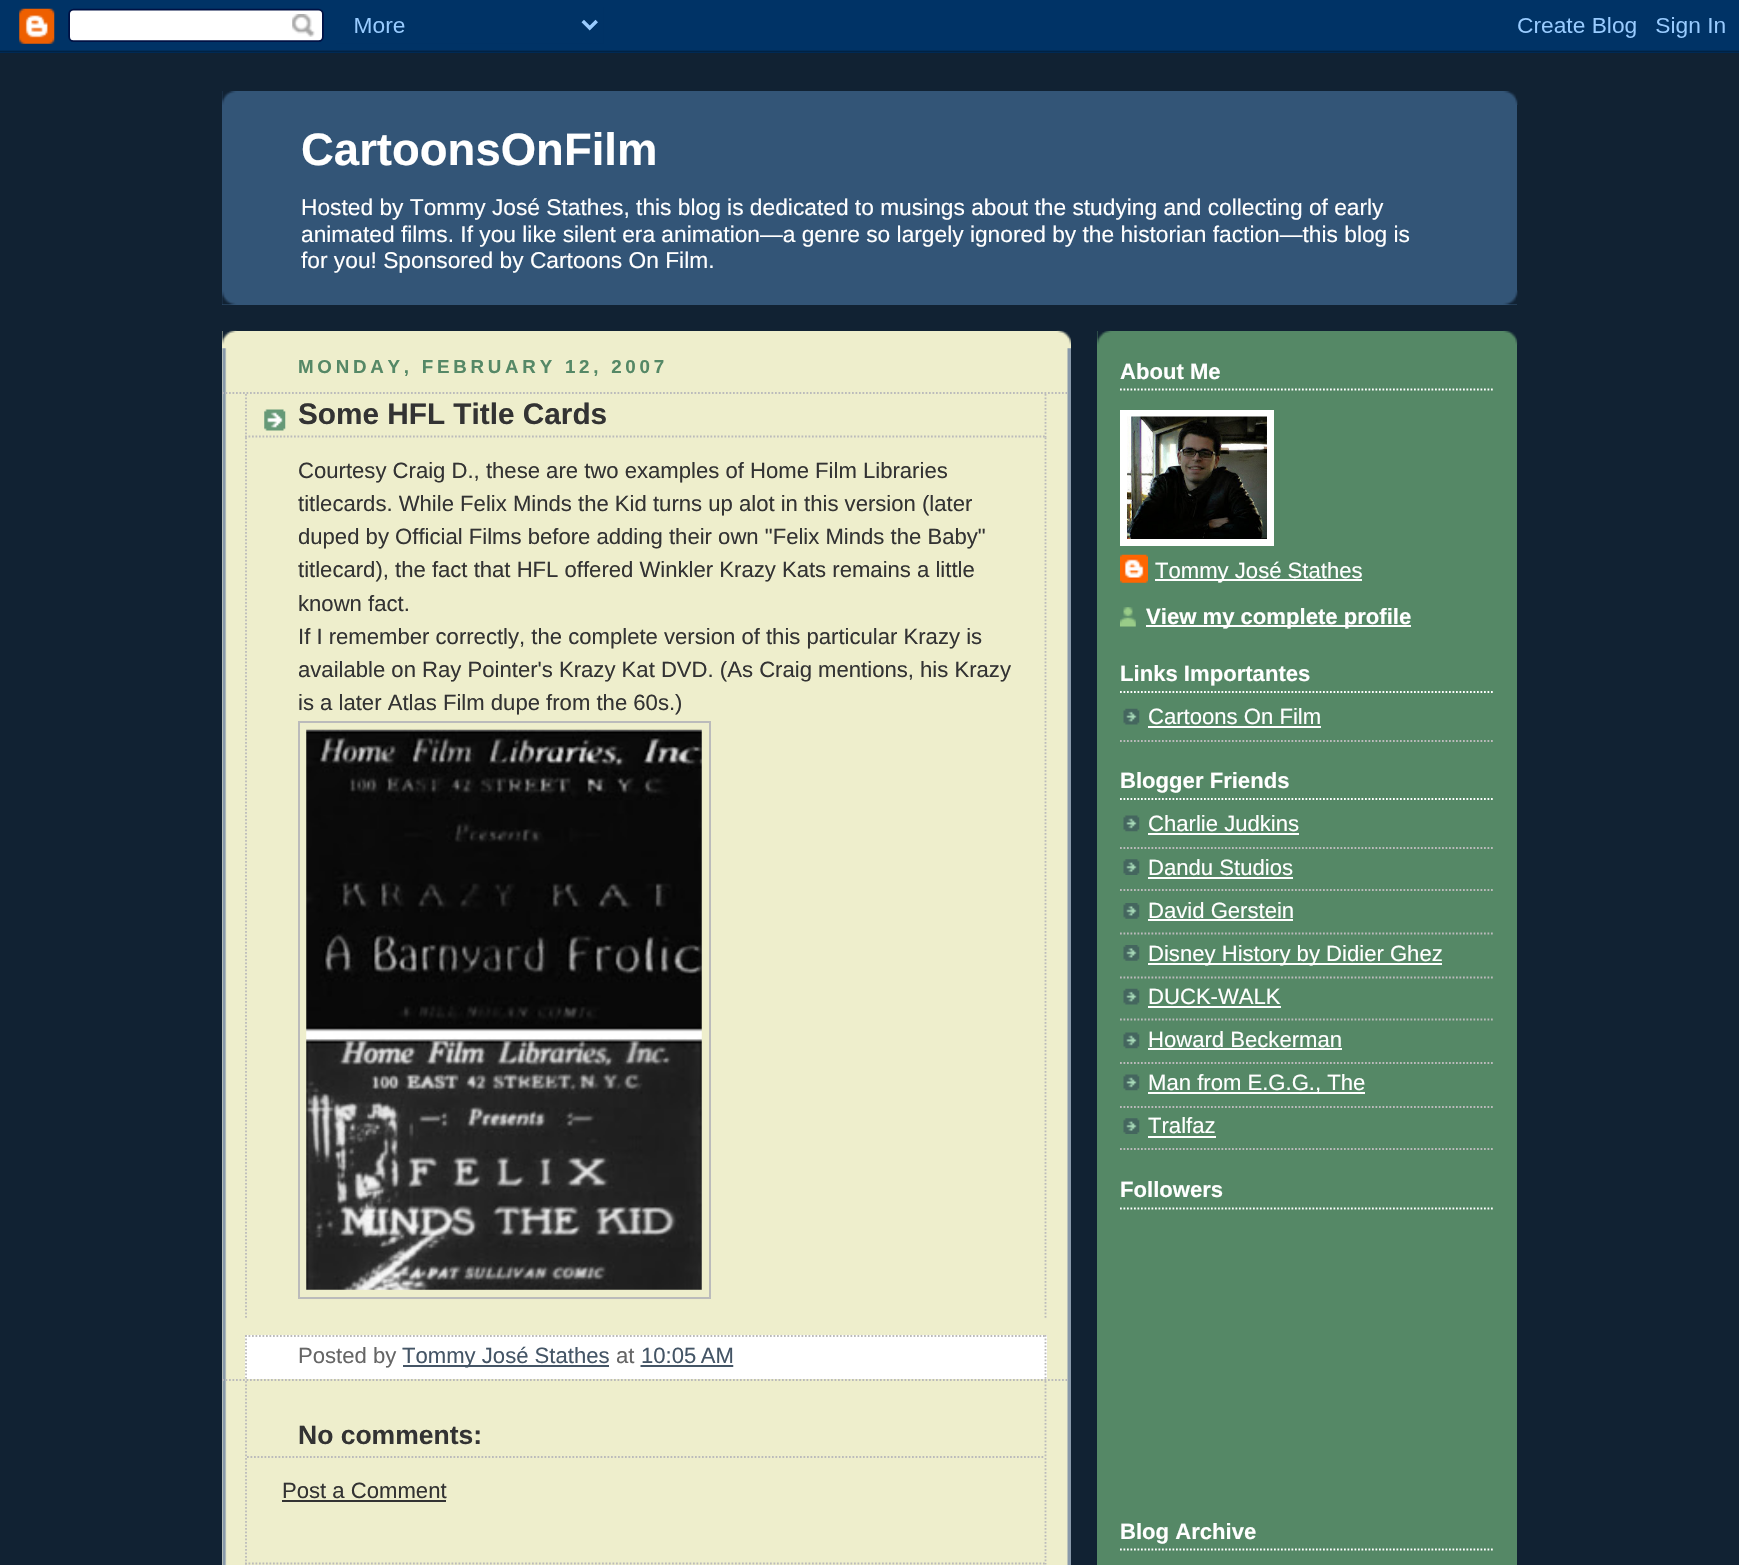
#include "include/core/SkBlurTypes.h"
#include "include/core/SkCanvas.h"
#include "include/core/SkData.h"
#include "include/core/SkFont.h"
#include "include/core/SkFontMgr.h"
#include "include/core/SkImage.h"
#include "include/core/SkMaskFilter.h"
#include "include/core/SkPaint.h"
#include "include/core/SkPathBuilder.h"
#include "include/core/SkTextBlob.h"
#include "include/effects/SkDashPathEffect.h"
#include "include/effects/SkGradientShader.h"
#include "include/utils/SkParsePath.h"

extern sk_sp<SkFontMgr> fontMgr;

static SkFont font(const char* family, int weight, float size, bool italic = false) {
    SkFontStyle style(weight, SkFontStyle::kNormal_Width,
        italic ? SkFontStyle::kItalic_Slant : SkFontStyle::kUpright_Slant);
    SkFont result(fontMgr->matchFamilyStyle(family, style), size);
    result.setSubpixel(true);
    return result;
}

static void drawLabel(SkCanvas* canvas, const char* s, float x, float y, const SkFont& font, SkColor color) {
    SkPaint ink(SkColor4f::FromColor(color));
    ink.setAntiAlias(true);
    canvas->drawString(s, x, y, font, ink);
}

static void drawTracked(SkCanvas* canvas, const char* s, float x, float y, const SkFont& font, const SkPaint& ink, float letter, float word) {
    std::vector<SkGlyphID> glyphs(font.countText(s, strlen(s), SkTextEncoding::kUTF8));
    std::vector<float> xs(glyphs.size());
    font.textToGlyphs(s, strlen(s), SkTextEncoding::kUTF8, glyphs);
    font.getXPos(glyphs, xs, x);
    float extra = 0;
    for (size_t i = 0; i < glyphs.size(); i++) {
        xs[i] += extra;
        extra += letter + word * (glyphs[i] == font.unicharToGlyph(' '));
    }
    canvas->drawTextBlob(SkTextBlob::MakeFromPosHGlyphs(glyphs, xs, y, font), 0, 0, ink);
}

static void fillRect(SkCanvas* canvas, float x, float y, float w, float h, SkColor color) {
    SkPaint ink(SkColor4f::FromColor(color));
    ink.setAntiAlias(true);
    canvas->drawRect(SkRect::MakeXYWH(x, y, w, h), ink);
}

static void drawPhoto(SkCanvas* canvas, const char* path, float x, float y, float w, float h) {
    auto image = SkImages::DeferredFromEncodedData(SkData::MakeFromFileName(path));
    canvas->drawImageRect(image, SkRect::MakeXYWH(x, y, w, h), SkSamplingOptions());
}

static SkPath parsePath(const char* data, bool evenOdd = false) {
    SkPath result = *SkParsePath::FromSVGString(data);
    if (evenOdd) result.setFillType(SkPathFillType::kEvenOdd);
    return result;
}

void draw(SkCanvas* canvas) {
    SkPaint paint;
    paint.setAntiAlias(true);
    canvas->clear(0xFF112233);
    drawPhoto(canvas, "assets/img1.png", 0, 0, 1739, 53);
    fillRect(canvas, 222, 91, 1295, 214, 0xFF335577);
    drawPhoto(canvas, "assets/img2.png", 222, 91, 1296, 14);
    drawPhoto(canvas, "assets/img3.png", 222, 290, 1296, 15);
    SkFont font1 = font("Liberation Sans", 700, 45.5f);
    drawLabel(canvas, "CartoonsOnFilm", 301, 165, font1, 0xFFFFFFFF);
    SkFont font2 = font("Liberation Sans", 400, 22.75f);
    drawLabel(canvas, "Hosted by Tommy José Stathes, this blog is dedicated to musings about the studying and collecting of early", 301, 215, font2, 0xFFFFFFFF);
    drawLabel(canvas, "animated films. If you like silent era animation—a genre so largely ignored by the historian faction—this blog is", 301, 242, font2, 0xFFFFFFFF);
    drawLabel(canvas, "for you! Sponsored by Cartoons On Film.", 301, 268, font2, 0xFFFFFFFF);
    fillRect(canvas, 222, 331, 849, 1234, 0xFFEEEECC);
    drawPhoto(canvas, "assets/img4.png", 222, 330, 849, 15);
    drawPhoto(canvas, "assets/img5.png", 222, 348, 849, 1217);
    SkFont font3 = font("Liberation Sans", 700, 18.75f);
    paint.setColor(0xFF558866);
    drawTracked(canvas, "MONDAY, FEBRUARY 12, 2007", 298, 373, font3, paint, 3.75f, 0);
    paint.setStroke(true);
    paint.setStrokeWidth(1.8f);
    paint.setColor(0xFFBBBBBB);
    paint.setPathEffect(SkDashPathEffect::Make({{1.75f, 1.75f}}, 0));
    canvas->drawPath(parsePath("M222 393H1069"), paint);
    paint.setPathEffect(nullptr);
    paint.setPathEffect(SkDashPathEffect::Make({{1.75f, 1.75f}}, 0));
    canvas->drawPath(parsePath("M222 1380H1069"), paint);
    paint.setPathEffect(nullptr);
    drawPhoto(canvas, "assets/img6.png", 264, 409, 22, 22);
    paint.setPathEffect(SkDashPathEffect::Make({{1.75f, 1.75f}}, 0));
    canvas->drawPath(parsePath("M1045.5 394V437.5"), paint);
    paint.setPathEffect(nullptr);
    paint.setPathEffect(SkDashPathEffect::Make({{1.75f, 1.75f}}, 0));
    canvas->drawPath(parsePath("M245 436.5H1046.5"), paint);
    paint.setPathEffect(nullptr);
    paint.setPathEffect(SkDashPathEffect::Make({{1.75f, 1.75f}}, 0));
    canvas->drawPath(parsePath("M246 394V437.5"), paint);
    paint.setPathEffect(nullptr);
    SkFont font4 = font("Liberation Sans", 700, 29.75f);
    drawLabel(canvas, "Some HFL Title Cards", 298, 424, font4, 0xFF333333);
    paint.setPathEffect(SkDashPathEffect::Make({{1.75f, 1.75f}}, 0));
    canvas->drawPath(parsePath("M1045.5 437.5V1319.5"), paint);
    paint.setPathEffect(nullptr);
    paint.setPathEffect(SkDashPathEffect::Make({{1.75f, 1.75f}}, 0));
    canvas->drawPath(parsePath("M246 437.5V1319.5"), paint);
    paint.setPathEffect(nullptr);
    SkFont font5 = font("Liberation Sans", 400, 22.1f);
    drawLabel(canvas, "Courtesy Craig D., these are two examples of Home Film Libraries", 298, 478, font5, 0xFF333333);
    drawLabel(canvas, "titlecards. While Felix Minds the Kid turns up alot in this version (later", 298, 511, font5, 0xFF333333);
    drawLabel(canvas, "duped by Official Films before adding their own \"Felix Minds the Baby\"", 298, 544, font5, 0xFF333333);
    drawLabel(canvas, "titlecard), the fact that HFL offered Winkler Krazy Kats remains a little", 298, 577, font5, 0xFF333333);
    drawLabel(canvas, "known fact.", 298, 611, font5, 0xFF333333);
    drawLabel(canvas, "If I remember correctly, the complete version of this particular Krazy is", 298, 644, font5, 0xFF333333);
    drawLabel(canvas, "available on Ray Pointer's Krazy Kat DVD. (As Craig mentions, his Krazy", 298, 677, font5, 0xFF333333);
    drawLabel(canvas, "is a later Atlas Film dupe from the 60s.)", 298, 710, font5, 0xFF333333);
    paint.setStrokeWidth(2);
    canvas->drawRect(SkRect::MakeXYWH(299, 722, 411, 576), paint);
    drawPhoto(canvas, "assets/img7.png", 306, 729, 396, 561);
    fillRect(canvas, 245, 1335, 802, 44, 0xFFFFFFFF);
    paint.setStrokeWidth(1.8f);
    paint.setPathEffect(SkDashPathEffect::Make({{1.75f, 1.75f}}, 0));
    canvas->drawPath(parsePath("M245 1336H1046.5"), paint);
    paint.setPathEffect(nullptr);
    paint.setPathEffect(SkDashPathEffect::Make({{1.75f, 1.75f}}, 0));
    canvas->drawPath(parsePath("M1045.5 1335V1379"), paint);
    paint.setPathEffect(nullptr);
    paint.setPathEffect(SkDashPathEffect::Make({{1.75f, 1.75f}}, 0));
    canvas->drawPath(parsePath("M246 1335V1379"), paint);
    paint.setPathEffect(nullptr);
    drawLabel(canvas, "Posted by", 298, 1363, font5, 0xFF666666);
    fillRect(canvas, 403, 1365, 206, 2, 0xFF445566);
    drawLabel(canvas, "Tommy José Stathes", 402, 1363, font5, 0xFF445566);
    drawLabel(canvas, "at", 616, 1363, font5, 0xFF666666);
    drawLabel(canvas, "10:05 AM", 641, 1363, font5, 0xFF445566);
    paint.setColor(0xFF445566);
    paint.setPathEffect(SkDashPathEffect::Make({{1.75f, 1.75f}}, 0));
    canvas->drawPath(parsePath("M640.5 1366H733.5"), paint);
    paint.setPathEffect(nullptr);
    fillRect(canvas, 641, 1365, 92, 2, 0xFF445566);
    paint.setColor(0xFFBBBBBB);
    paint.setPathEffect(SkDashPathEffect::Make({{1.75f, 1.75f}}, 0));
    canvas->drawPath(parsePath("M1045.5 1381V1564.5"), paint);
    paint.setPathEffect(nullptr);
    paint.setPathEffect(SkDashPathEffect::Make({{1.75f, 1.75f}}, 0));
    canvas->drawPath(parsePath("M245 1563.5H1046.5"), paint);
    paint.setPathEffect(nullptr);
    paint.setPathEffect(SkDashPathEffect::Make({{1.75f, 1.75f}}, 0));
    canvas->drawPath(parsePath("M246 1381V1564.5"), paint);
    paint.setPathEffect(nullptr);
    paint.setPathEffect(SkDashPathEffect::Make({{1.75f, 1.75f}}, 0));
    canvas->drawPath(parsePath("M247 1457H1045"), paint);
    paint.setPathEffect(nullptr);
    SkFont font6 = font("Liberation Sans", 700, 26.5f);
    drawLabel(canvas, "No comments:", 298, 1444, font6, 0xFF333333);
    drawLabel(canvas, "Post a Comment", 282, 1498, font5, 0xFF333333);
    fillRect(canvas, 282, 1500, 164, 2, 0xFF333333);
    fillRect(canvas, 1097, 331, 420, 1234, 0xFF558866);
    drawPhoto(canvas, "assets/img8.png", 1097, 330, 421, 15);
    paint.setColor(0xFFFFFFFF);
    paint.setPathEffect(SkDashPathEffect::Make({{1.75f, 1.75f}}, 0));
    canvas->drawPath(parsePath("M1120 389.5H1494.5"), paint);
    paint.setPathEffect(nullptr);
    SkFont font7 = font("Liberation Sans", 700, 22.1f);
    drawLabel(canvas, "About Me", 1120, 379, font7, 0xFFFFFFFF);
    paint.setStrokeWidth(7);
    canvas->drawRect(SkRect::MakeXYWH(1123.5f, 413.5f, 147, 129), paint);
    drawPhoto(canvas, "assets/img9.png", 1127, 416, 140, 123);
    drawPhoto(canvas, "assets/img10.png", 1120, 554, 28, 29);
    fillRect(canvas, 1155, 579, 207, 2, 0xFFFFFFFF);
    drawLabel(canvas, "Tommy José Stathes", 1155, 578, font5, 0xFFFFFFFF);
    drawPhoto(canvas, "assets/img11.png", 1120, 607, 16, 20);
    fillRect(canvas, 1146, 625, 265, 2, 0xFFFFFFFF);
    drawLabel(canvas, "View my complete profile", 1146, 624, font7, 0xFFFFFFFF);
    paint.setStrokeWidth(1.8f);
    paint.setPathEffect(SkDashPathEffect::Make({{1.75f, 1.75f}}, 0));
    canvas->drawPath(parsePath("M1120 692H1494.5"), paint);
    paint.setPathEffect(nullptr);
    drawLabel(canvas, "Links Importantes", 1120, 681, font7, 0xFFFFFFFF);
    drawPhoto(canvas, "assets/img12.png", 1123, 708, 17, 17);
    paint.setColor(0xFFBBBBBB);
    paint.setPathEffect(SkDashPathEffect::Make({{1.75f, 1.75f}}, 0));
    canvas->drawPath(parsePath("M1120 741H1494.5"), paint);
    paint.setPathEffect(nullptr);
    drawLabel(canvas, "Cartoons On Film", 1148, 724, font5, 0xFFFFFFFF);
    fillRect(canvas, 1148, 726, 173, 2, 0xFFFFFFFF);
    paint.setColor(0xFFFFFFFF);
    paint.setPathEffect(SkDashPathEffect::Make({{1.75f, 1.75f}}, 0));
    canvas->drawPath(parsePath("M1120 799H1494.5"), paint);
    paint.setPathEffect(nullptr);
    drawLabel(canvas, "Blogger Friends", 1120, 788, font7, 0xFFFFFFFF);
    drawPhoto(canvas, "assets/img13.png", 1123, 815, 17, 17);
    paint.setColor(0xFFBBBBBB);
    paint.setPathEffect(SkDashPathEffect::Make({{1.75f, 1.75f}}, 0));
    canvas->drawPath(parsePath("M1120 848H1494.5"), paint);
    paint.setPathEffect(nullptr);
    drawLabel(canvas, "Charlie Judkins", 1148, 831, font5, 0xFFFFFFFF);
    fillRect(canvas, 1148, 833, 151, 2, 0xFFFFFFFF);
    drawPhoto(canvas, "assets/img14.png", 1123, 859, 17, 16);
    paint.setPathEffect(SkDashPathEffect::Make({{1.75f, 1.75f}}, 0));
    canvas->drawPath(parsePath("M1120 890H1494.5"), paint);
    paint.setPathEffect(nullptr);
    drawLabel(canvas, "Dandu Studios", 1148, 875, font5, 0xFFFFFFFF);
    fillRect(canvas, 1148, 877, 145, 2, 0xFFFFFFFF);
    drawPhoto(canvas, "assets/img15.png", 1123, 903, 17, 16);
    paint.setPathEffect(SkDashPathEffect::Make({{1.75f, 1.75f}}, 0));
    canvas->drawPath(parsePath("M1120 933.5H1494.5"), paint);
    paint.setPathEffect(nullptr);
    drawLabel(canvas, "David Gerstein", 1148, 918, font5, 0xFFFFFFFF);
    fillRect(canvas, 1148, 919, 145, 2, 0xFFFFFFFF);
    drawPhoto(canvas, "assets/img15.png", 1123, 945, 17, 16);
    paint.setPathEffect(SkDashPathEffect::Make({{1.75f, 1.75f}}, 0));
    canvas->drawPath(parsePath("M1120 977.5H1494.5"), paint);
    paint.setPathEffect(nullptr);
    fillRect(canvas, 1148, 963, 294, 2, 0xFFFFFFFF);
    drawLabel(canvas, "Disney History by Didier Ghez", 1148, 961, font5, 0xFFFFFFFF);
    drawPhoto(canvas, "assets/img12.png", 1123, 988, 17, 17);
    paint.setPathEffect(SkDashPathEffect::Make({{1.75f, 1.75f}}, 0));
    canvas->drawPath(parsePath("M1120 1019.5H1494.5"), paint);
    paint.setPathEffect(nullptr);
    drawLabel(canvas, "DUCK-WALK", 1148, 1004, font5, 0xFFFFFFFF);
    fillRect(canvas, 1148, 1006, 133, 2, 0xFFFFFFFF);
    drawPhoto(canvas, "assets/img13.png", 1123, 1032, 17, 17);
    paint.setPathEffect(SkDashPathEffect::Make({{1.75f, 1.75f}}, 0));
    canvas->drawPath(parsePath("M1120 1063H1494.5"), paint);
    paint.setPathEffect(nullptr);
    drawLabel(canvas, "Howard Beckerman", 1148, 1047, font5, 0xFFFFFFFF);
    fillRect(canvas, 1148, 1048, 194, 2, 0xFFFFFFFF);
    drawPhoto(canvas, "assets/img13.png", 1123, 1074, 17, 17);
    paint.setPathEffect(SkDashPathEffect::Make({{1.75f, 1.75f}}, 0));
    canvas->drawPath(parsePath("M1120 1107H1494.5"), paint);
    paint.setPathEffect(nullptr);
    fillRect(canvas, 1148, 1092, 217, 2, 0xFFFFFFFF);
    drawLabel(canvas, "Man from E.G.G., The", 1148, 1090, font5, 0xFFFFFFFF);
    drawPhoto(canvas, "assets/img14.png", 1123, 1118, 17, 16);
    paint.setPathEffect(SkDashPathEffect::Make({{1.75f, 1.75f}}, 0));
    canvas->drawPath(parsePath("M1120 1149H1494.5"), paint);
    paint.setPathEffect(nullptr);
    drawLabel(canvas, "Tralfaz", 1148, 1133, font5, 0xFFFFFFFF);
    fillRect(canvas, 1148, 1136, 68, 2, 0xFFFFFFFF);
    paint.setColor(0xFFFFFFFF);
    paint.setPathEffect(SkDashPathEffect::Make({{1.75f, 1.75f}}, 0));
    canvas->drawPath(parsePath("M1120 1208.5H1494.5"), paint);
    paint.setPathEffect(nullptr);
    drawLabel(canvas, "Followers", 1120, 1197, font7, 0xFFFFFFFF);
    paint.setPathEffect(SkDashPathEffect::Make({{1.75f, 1.75f}}, 0));
    canvas->drawPath(parsePath("M1120 1549.5H1494.5"), paint);
    paint.setPathEffect(nullptr);
    drawLabel(canvas, "Blog Archive", 1120, 1539, font7, 0xFFFFFFFF);
}
